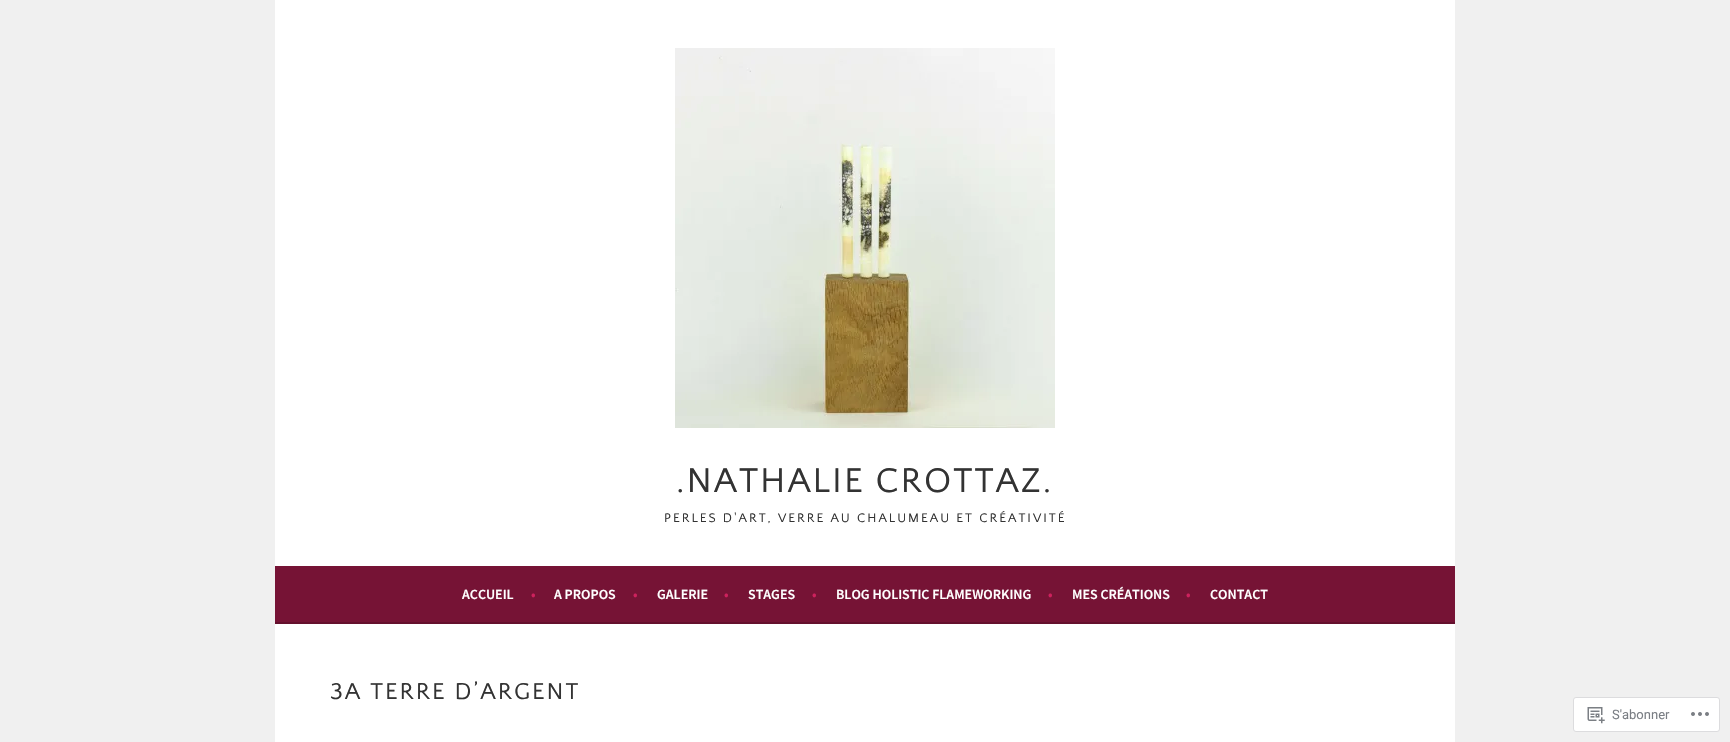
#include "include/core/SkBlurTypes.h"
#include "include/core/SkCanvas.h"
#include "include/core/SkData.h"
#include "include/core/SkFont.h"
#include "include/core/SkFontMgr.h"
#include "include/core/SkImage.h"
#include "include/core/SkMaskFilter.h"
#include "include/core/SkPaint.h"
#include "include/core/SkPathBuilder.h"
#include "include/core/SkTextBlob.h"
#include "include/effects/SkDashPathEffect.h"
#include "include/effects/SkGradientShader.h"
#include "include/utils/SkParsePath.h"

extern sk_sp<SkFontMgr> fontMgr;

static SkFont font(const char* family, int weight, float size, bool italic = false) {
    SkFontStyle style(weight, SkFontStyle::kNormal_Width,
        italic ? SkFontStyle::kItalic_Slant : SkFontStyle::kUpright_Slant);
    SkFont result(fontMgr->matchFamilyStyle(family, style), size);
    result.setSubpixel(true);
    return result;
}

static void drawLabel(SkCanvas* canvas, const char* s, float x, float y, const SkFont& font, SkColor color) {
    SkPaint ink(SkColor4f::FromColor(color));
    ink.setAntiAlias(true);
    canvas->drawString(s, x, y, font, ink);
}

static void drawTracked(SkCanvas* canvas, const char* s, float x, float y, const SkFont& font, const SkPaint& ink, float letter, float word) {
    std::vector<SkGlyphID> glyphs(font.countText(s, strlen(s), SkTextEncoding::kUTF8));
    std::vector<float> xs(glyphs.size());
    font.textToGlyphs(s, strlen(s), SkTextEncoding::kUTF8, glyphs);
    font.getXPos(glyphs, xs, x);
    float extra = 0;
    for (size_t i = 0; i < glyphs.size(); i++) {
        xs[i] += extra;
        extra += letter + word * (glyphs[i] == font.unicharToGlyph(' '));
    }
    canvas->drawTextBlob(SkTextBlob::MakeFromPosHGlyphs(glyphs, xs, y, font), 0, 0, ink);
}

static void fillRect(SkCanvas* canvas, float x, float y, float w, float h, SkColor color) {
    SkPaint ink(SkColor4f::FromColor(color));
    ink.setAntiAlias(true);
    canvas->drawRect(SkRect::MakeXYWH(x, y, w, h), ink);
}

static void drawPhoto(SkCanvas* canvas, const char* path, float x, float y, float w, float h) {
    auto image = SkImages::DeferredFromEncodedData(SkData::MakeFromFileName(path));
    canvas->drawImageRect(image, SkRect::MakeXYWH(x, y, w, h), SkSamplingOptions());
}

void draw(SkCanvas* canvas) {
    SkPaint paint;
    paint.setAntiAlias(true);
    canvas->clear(0xFFF0F0F0);
    fillRect(canvas, 275, 0, 1180, 566, 0xFFFFFFFF);
    drawPhoto(canvas, "assets/img1.png", 675, 48, 380, 380);
    SkFont font1 = font("Quattrocento Sans", 400, 36);
    paint.setColor(0xFF333333);
    drawTracked(canvas, ".NATHALIE CROTTAZ.", 676, 492, font1, paint, 2, 0);
    SkFont font2 = font("Quattrocento Sans", 400, 13);
    drawTracked(canvas, "PERLES D'ART, VERRE AU CHALUMEAU ET CRÉATIVITÉ", 664, 522, font2, paint, 2, 0);
    fillRect(canvas, 275, 566, 1180, 56, 0xFF761335);
    fillRect(canvas, 275, 622, 1180, 2, 0xFF64102D);
    SkFont font3 = font("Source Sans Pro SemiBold", 600, 14);
    drawLabel(canvas, "ACCUEIL", 462, 599, font3, 0xFFFFFFFF);
    drawLabel(canvas, "•", 531, 599, font3, 0xFFCE215D);
    drawLabel(canvas, "A PROPOS", 554, 599, font3, 0xFFFFFFFF);
    drawLabel(canvas, "•", 633, 599, font3, 0xFFCE215D);
    drawLabel(canvas, "GALERIE", 657, 599, font3, 0xFFFFFFFF);
    drawLabel(canvas, "•", 724, 599, font3, 0xFFCE215D);
    drawLabel(canvas, "STAGES", 748, 599, font3, 0xFFFFFFFF);
    drawLabel(canvas, "•", 812, 599, font3, 0xFFCE215D);
    drawLabel(canvas, "BLOG HOLISTIC FLAMEWORKING", 836, 599, font3, 0xFFFFFFFF);
    drawLabel(canvas, "•", 1048, 599, font3, 0xFFCE215D);
    drawLabel(canvas, "MES CRÉATIONS", 1072, 599, font3, 0xFFFFFFFF);
    drawLabel(canvas, "•", 1186, 599, font3, 0xFFCE215D);
    drawLabel(canvas, "CONTACT", 1210, 599, font3, 0xFFFFFFFF);
    fillRect(canvas, 275, 624, 1180, 118, 0xFFFFFFFF);
    SkFont font4 = font("Quattrocento Sans", 400, 24);
    drawTracked(canvas, "3A TERRE D’ARGENT", 330, 699, font4, paint, 2, 0);
    paint.setColor(0xFFFFFFFF);
    canvas->drawRoundRect(SkRect::MakeXYWH(1573.5f, 697.5f, 146, 34), 2.5f, 2.5f, paint);
    paint.setStroke(true);
    paint.setStrokeWidth(1);
    paint.setColor(0xFFDCDCDE);
    canvas->drawRoundRect(SkRect::MakeXYWH(1573.5f, 697.5f, 146, 34), 2.5f, 2.5f, paint);
    drawPhoto(canvas, "assets/img2.png", 1587, 707, 18, 17);
    SkFont font5 = font("Roboto", 400, 13);
    drawLabel(canvas, "S'abonner", 1612, 719, font5, 0xFF7A7E84);
    drawPhoto(canvas, "assets/img3.png", 1691, 712, 18, 4);
}
